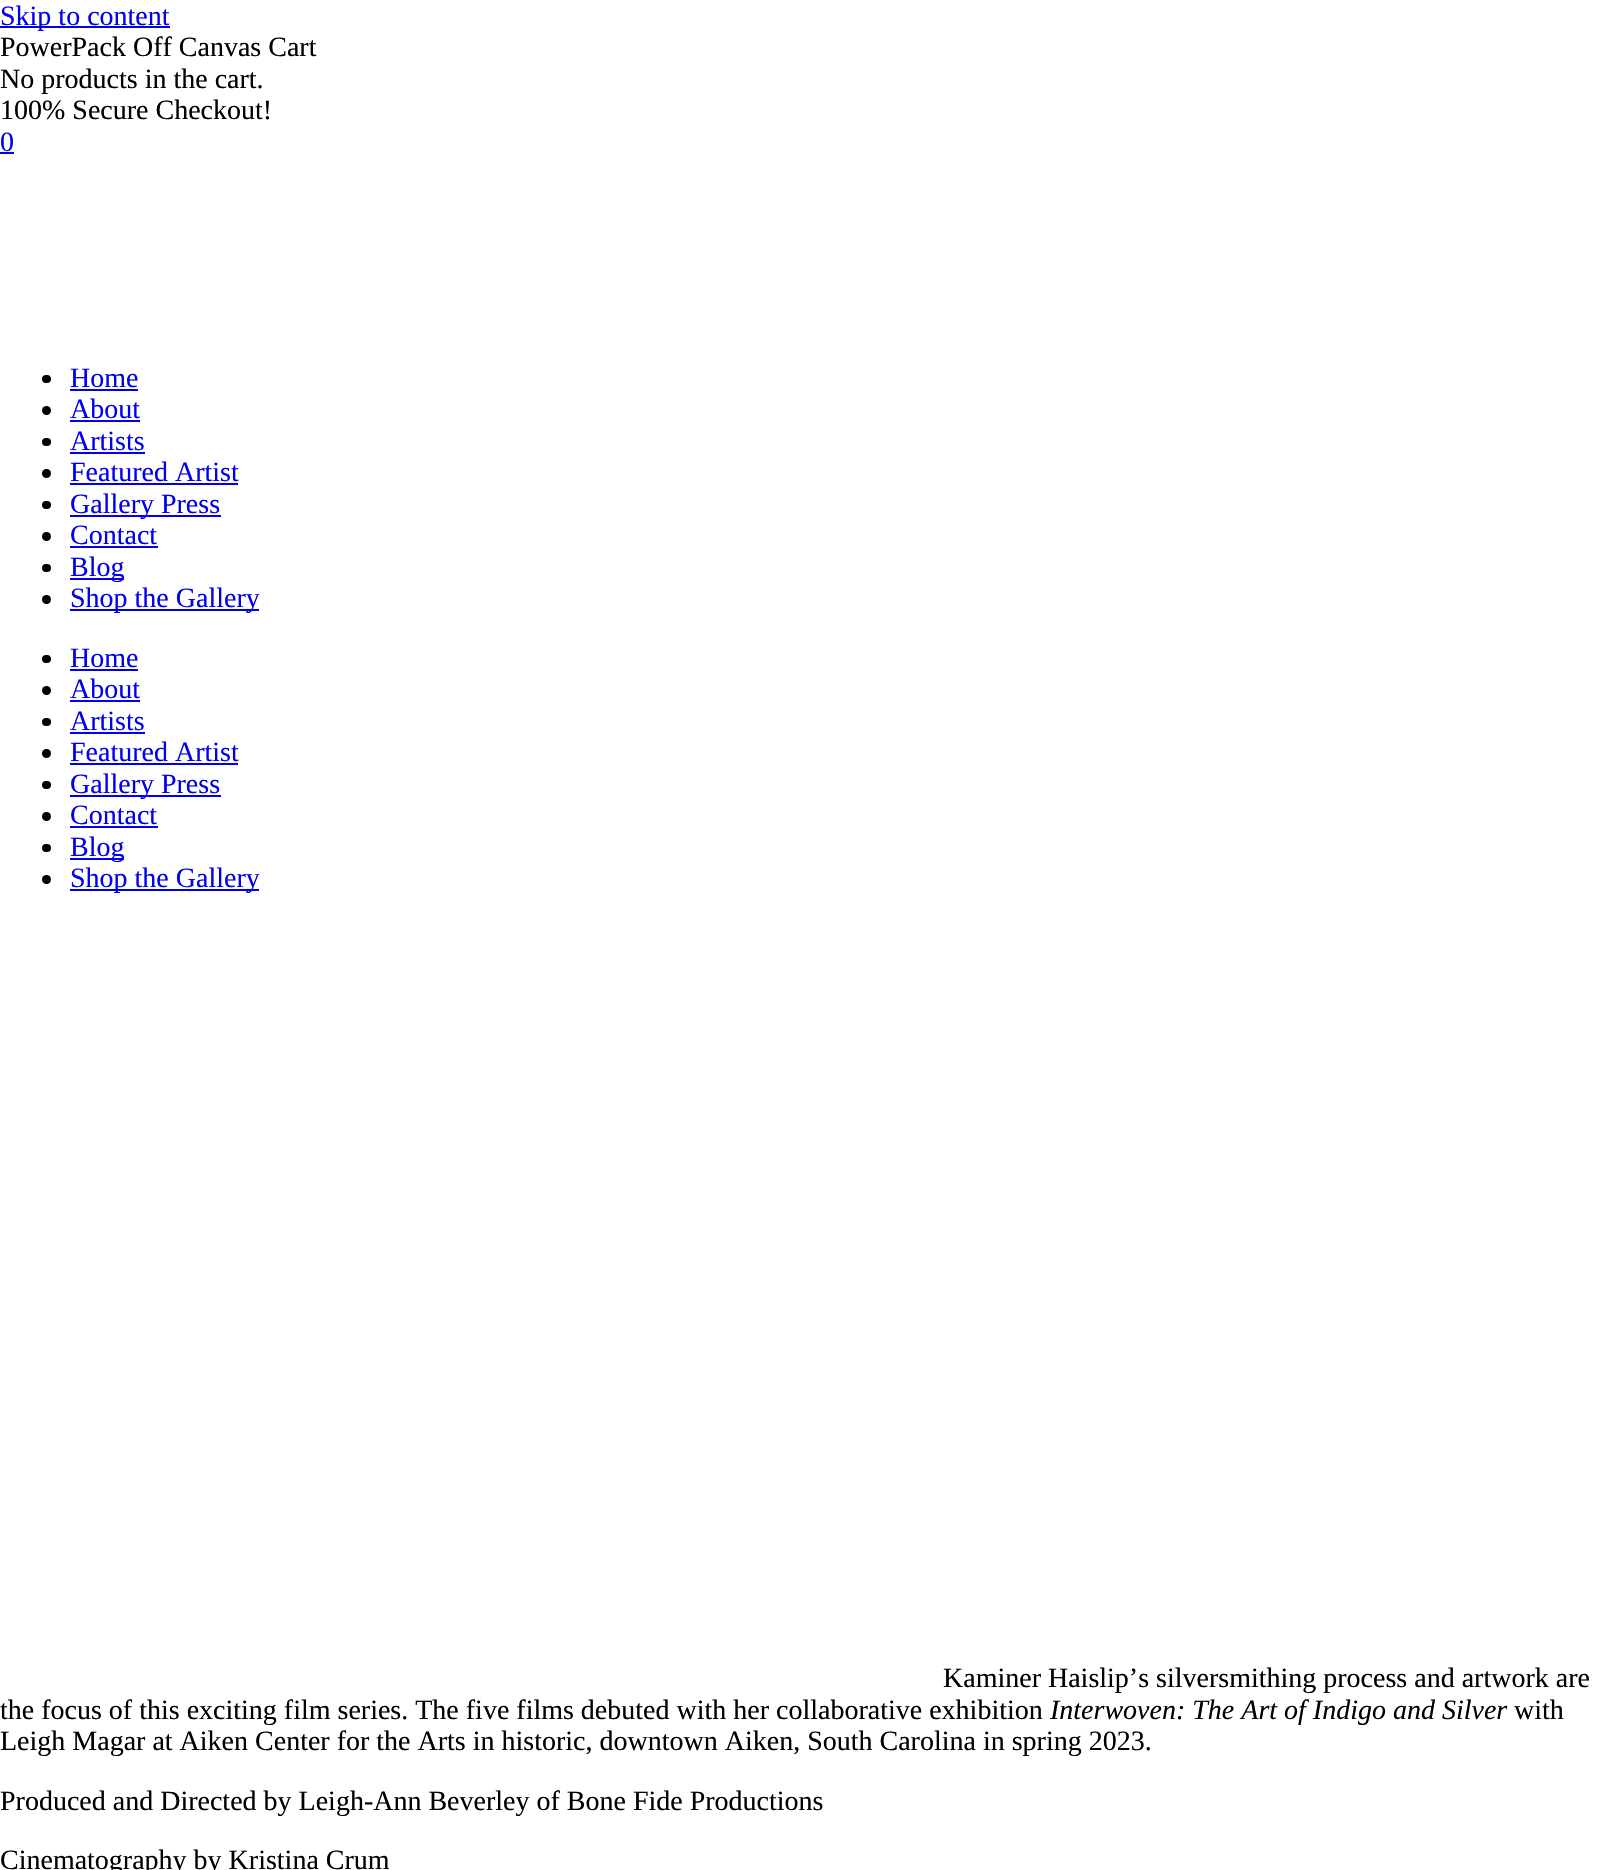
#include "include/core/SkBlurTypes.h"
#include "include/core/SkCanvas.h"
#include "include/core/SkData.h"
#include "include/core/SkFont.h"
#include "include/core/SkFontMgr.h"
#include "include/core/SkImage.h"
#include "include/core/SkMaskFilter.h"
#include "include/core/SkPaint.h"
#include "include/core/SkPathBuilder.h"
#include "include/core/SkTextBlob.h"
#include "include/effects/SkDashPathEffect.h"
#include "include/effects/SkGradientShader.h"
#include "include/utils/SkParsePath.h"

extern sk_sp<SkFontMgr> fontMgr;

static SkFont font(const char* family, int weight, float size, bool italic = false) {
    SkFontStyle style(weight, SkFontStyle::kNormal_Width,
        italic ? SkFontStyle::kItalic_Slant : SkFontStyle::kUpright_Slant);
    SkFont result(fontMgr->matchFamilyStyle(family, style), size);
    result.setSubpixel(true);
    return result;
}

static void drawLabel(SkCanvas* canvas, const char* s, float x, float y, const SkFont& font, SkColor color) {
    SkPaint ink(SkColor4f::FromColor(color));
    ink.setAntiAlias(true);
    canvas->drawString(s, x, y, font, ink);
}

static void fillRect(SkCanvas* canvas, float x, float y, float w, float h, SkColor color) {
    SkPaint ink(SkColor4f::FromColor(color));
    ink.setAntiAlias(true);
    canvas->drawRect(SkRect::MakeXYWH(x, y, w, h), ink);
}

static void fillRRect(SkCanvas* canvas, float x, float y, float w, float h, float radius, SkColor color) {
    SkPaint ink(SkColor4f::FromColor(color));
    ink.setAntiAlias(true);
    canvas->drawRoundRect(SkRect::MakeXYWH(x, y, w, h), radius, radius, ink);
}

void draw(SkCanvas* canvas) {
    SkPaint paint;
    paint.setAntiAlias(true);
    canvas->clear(0xFFFFFFFF);
    fillRect(canvas, 0, 26, 170, 2, 0xFF0000EE);
    SkFont font1 = font("Liberation Serif", 400, 28);
    drawLabel(canvas, "Skip to content", 0, 25, font1, 0xFF0000EE);
    drawLabel(canvas, "PowerPack Off Canvas Cart", 0, 56, font1, 0xFF000000);
    drawLabel(canvas, "No products in the cart.", 0, 88, font1, 0xFF000000);
    drawLabel(canvas, "100% Secure Checkout!", 0, 119, font1, 0xFF000000);
    drawLabel(canvas, "0", 0, 151, font1, 0xFF0000EE);
    fillRect(canvas, 0, 152, 14, 2, 0xFF0000EE);
    fillRRect(canvas, 42, 375, 9, 8, 4, 0xFF000000);
    drawLabel(canvas, "Home", 70, 387, font1, 0xFF0000EE);
    fillRect(canvas, 70, 389, 68, 2, 0xFF0000EE);
    paint.setColor(0xFF000000);
    canvas->drawCircle(46.5f, 410.5f, 4.5f, paint);
    drawLabel(canvas, "About", 70, 418, font1, 0xFF0000EE);
    fillRect(canvas, 70, 420, 70, 2, 0xFF0000EE);
    fillRRect(canvas, 42, 438, 9, 8, 4, 0xFF000000);
    drawLabel(canvas, "Artists", 70, 450, font1, 0xFF0000EE);
    fillRect(canvas, 70, 452, 75, 2, 0xFF0000EE);
    canvas->drawCircle(46.5f, 473.5f, 4.5f, paint);
    drawLabel(canvas, "Featured Artist", 70, 481, font1, 0xFF0000EE);
    fillRect(canvas, 70, 483, 168, 2, 0xFF0000EE);
    fillRRect(canvas, 42, 501, 9, 8, 4, 0xFF000000);
    fillRect(canvas, 70, 515, 151, 2, 0xFF0000EE);
    drawLabel(canvas, "Gallery Press", 70, 513, font1, 0xFF0000EE);
    canvas->drawCircle(46.5f, 536.5f, 4.5f, paint);
    drawLabel(canvas, "Contact", 70, 544, font1, 0xFF0000EE);
    fillRect(canvas, 70, 546, 88, 2, 0xFF0000EE);
    fillRRect(canvas, 42, 564, 9, 8, 4, 0xFF000000);
    fillRect(canvas, 70, 578, 54, 2, 0xFF0000EE);
    drawLabel(canvas, "Blog", 70, 576, font1, 0xFF0000EE);
    canvas->drawCircle(46.5f, 599.5f, 4.5f, paint);
    fillRect(canvas, 70, 609, 189, 2, 0xFF0000EE);
    drawLabel(canvas, "Shop the Gallery", 70, 607, font1, 0xFF0000EE);
    fillRRect(canvas, 42, 655, 9, 8, 4, 0xFF000000);
    drawLabel(canvas, "Home", 70, 667, font1, 0xFF0000EE);
    fillRect(canvas, 70, 669, 68, 2, 0xFF0000EE);
    canvas->drawCircle(46.5f, 690.5f, 4.5f, paint);
    drawLabel(canvas, "About", 70, 698, font1, 0xFF0000EE);
    fillRect(canvas, 70, 700, 70, 2, 0xFF0000EE);
    fillRRect(canvas, 42, 718, 9, 8, 4, 0xFF000000);
    drawLabel(canvas, "Artists", 70, 730, font1, 0xFF0000EE);
    fillRect(canvas, 70, 732, 75, 2, 0xFF0000EE);
    canvas->drawCircle(46.5f, 753.5f, 4.5f, paint);
    drawLabel(canvas, "Featured Artist", 70, 761, font1, 0xFF0000EE);
    fillRect(canvas, 70, 763, 168, 2, 0xFF0000EE);
    fillRRect(canvas, 42, 781, 9, 8, 4, 0xFF000000);
    fillRect(canvas, 70, 795, 151, 2, 0xFF0000EE);
    drawLabel(canvas, "Gallery Press", 70, 793, font1, 0xFF0000EE);
    canvas->drawCircle(46.5f, 816.5f, 4.5f, paint);
    drawLabel(canvas, "Contact", 70, 824, font1, 0xFF0000EE);
    fillRect(canvas, 70, 826, 88, 2, 0xFF0000EE);
    fillRRect(canvas, 42, 844, 9, 8, 4, 0xFF000000);
    fillRect(canvas, 70, 858, 54, 2, 0xFF0000EE);
    drawLabel(canvas, "Blog", 70, 856, font1, 0xFF0000EE);
    canvas->drawCircle(46.5f, 879.5f, 4.5f, paint);
    fillRect(canvas, 70, 889, 189, 2, 0xFF0000EE);
    drawLabel(canvas, "Shop the Gallery", 70, 887, font1, 0xFF0000EE);
    drawLabel(canvas, "Kaminer Haislip’s silversmithing process and artwork are", 943, 1687, font1, 0xFF000000);
    drawLabel(canvas, "the focus of this exciting film series. The five films debuted with her collaborative exhibition", 0, 1719, font1, 0xFF000000);
    SkFont font2 = font("Liberation Serif", 400, 28, true);
    drawLabel(canvas, "Interwoven: The Art of Indigo and Silver", 1050, 1719, font2, 0xFF000000);
    drawLabel(canvas, "with", 1514, 1719, font1, 0xFF000000);
    drawLabel(canvas, "Leigh Magar at Aiken Center for the Arts in historic, downtown Aiken, South Carolina in spring 2023.", 0, 1750, font1, 0xFF000000);
    drawLabel(canvas, "Produced and Directed by Leigh-Ann Beverley of Bone Fide Productions", 0, 1810, font1, 0xFF000000);
    drawLabel(canvas, "Cinematography by Kristina Crum", 0, 1869, font1, 0xFF000000);
}
